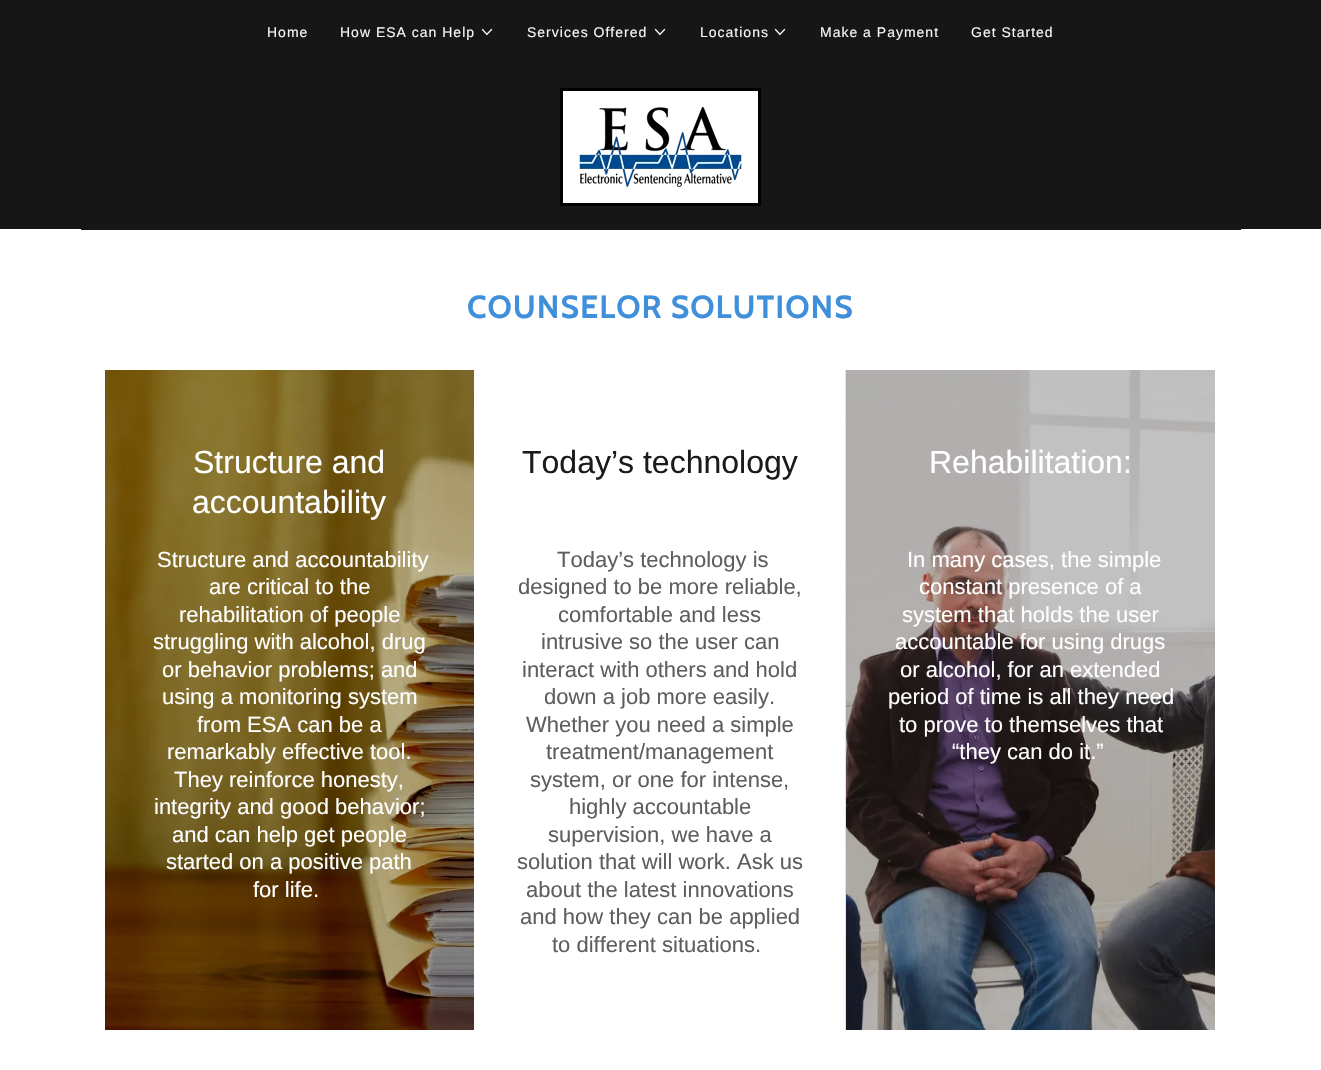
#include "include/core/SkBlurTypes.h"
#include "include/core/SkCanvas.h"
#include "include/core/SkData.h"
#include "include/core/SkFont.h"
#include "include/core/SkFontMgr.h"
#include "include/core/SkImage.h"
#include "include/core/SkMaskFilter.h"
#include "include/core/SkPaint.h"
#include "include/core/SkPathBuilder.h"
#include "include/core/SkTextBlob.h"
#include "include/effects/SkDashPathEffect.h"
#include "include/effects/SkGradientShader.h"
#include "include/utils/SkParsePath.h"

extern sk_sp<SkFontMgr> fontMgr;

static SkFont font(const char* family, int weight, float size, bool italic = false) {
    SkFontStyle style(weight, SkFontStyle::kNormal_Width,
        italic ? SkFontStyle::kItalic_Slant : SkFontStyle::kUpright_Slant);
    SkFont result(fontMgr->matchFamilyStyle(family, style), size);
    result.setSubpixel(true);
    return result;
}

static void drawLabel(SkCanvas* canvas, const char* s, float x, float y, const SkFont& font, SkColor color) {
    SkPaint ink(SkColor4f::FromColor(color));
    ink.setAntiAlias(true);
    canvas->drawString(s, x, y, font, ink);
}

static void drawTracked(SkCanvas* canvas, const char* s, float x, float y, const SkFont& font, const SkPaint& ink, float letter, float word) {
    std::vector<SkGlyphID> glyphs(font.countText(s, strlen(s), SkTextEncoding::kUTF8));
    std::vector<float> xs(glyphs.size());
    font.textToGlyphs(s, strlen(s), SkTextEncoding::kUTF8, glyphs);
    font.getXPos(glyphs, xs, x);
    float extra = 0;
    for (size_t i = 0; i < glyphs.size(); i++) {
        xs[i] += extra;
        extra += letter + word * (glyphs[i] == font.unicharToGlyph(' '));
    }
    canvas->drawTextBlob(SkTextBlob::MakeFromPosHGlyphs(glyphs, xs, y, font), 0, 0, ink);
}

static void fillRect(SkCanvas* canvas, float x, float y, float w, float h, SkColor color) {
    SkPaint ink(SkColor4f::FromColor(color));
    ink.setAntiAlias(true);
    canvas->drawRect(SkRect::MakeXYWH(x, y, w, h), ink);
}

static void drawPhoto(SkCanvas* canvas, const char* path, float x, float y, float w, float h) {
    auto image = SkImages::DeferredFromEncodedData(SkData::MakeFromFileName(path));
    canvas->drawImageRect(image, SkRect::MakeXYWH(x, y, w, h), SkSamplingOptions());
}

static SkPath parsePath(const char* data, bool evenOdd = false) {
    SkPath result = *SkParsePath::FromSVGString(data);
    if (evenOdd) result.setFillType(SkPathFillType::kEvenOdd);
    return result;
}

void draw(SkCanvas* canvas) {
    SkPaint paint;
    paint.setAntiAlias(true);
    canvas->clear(0xFF161616);
    SkFont font1 = font("Liberation Sans", 400, 14);
    paint.setColor(0xFFF7F7F7);
    drawTracked(canvas, "Home", 267, 37, font1, paint, 1, 0);
    drawTracked(canvas, "How ESA can Help", 340, 37, font1, paint, 1, 0);
    drawPhoto(canvas, "assets/img1.png", 481, 28, 12, 8);
    drawTracked(canvas, "Services Offered", 527, 37, font1, paint, 1, 0);
    drawPhoto(canvas, "assets/img1.png", 654, 28, 12, 8);
    drawTracked(canvas, "Locations", 700, 37, font1, paint, 1, 0);
    drawPhoto(canvas, "assets/img1.png", 774, 28, 12, 8);
    drawTracked(canvas, "Make a Payment", 820, 37, font1, paint, 1, 0);
    drawTracked(canvas, "Get Started", 971, 37, font1, paint, 1, 0);
    fillRect(canvas, 0, 229, 1321, 841, 0xFFFFFFFF);
    fillRect(canvas, 81, 229, 1160, 1, 0xFF161616);
    paint.setColor(0xFFFFFFFF);
    canvas->drawRect(SkRect::MakeXYWH(561.5f, 89.5f, 198, 115), paint);
    paint.setStroke(true);
    paint.setStrokeWidth(3);
    paint.setColor(0xFF000000);
    canvas->drawRect(SkRect::MakeXYWH(561.5f, 89.5f, 198, 115), paint);
    drawPhoto(canvas, "assets/img2.png", 579, 107, 163, 80);
    SkFont font2 = font("Cabin", 700, 32);
    paint.setStroke(false);
    paint.setColor(0xFF408FDB);
    drawTracked(canvas, "COUNSELOR SOLUTIONS", 467, 318, font2, paint, 1, 0);
    drawPhoto(canvas, "assets/img3.png", 105, 370, 369, 660);
    SkFont font3 = font("Liberation Sans", 400, 32);
    drawLabel(canvas, "Structure and", 193, 473, font3, 0xFFFFFFFF);
    drawLabel(canvas, "accountability", 192, 513, font3, 0xFFFFFFFF);
    SkFont font4 = font("Liberation Sans", 400, 22);
    drawLabel(canvas, "Structure and accountability", 157, 567, font4, 0xFFFFFFFF);
    drawLabel(canvas, "are critical to the", 209, 594, font4, 0xFFFFFFFF);
    drawLabel(canvas, "rehabilitation of people", 179, 622, font4, 0xFFFFFFFF);
    drawLabel(canvas, "struggling with alcohol, drug", 153, 649, font4, 0xFFFFFFFF);
    drawLabel(canvas, "or behavior problems; and", 162, 677, font4, 0xFFFFFFFF);
    drawLabel(canvas, "using a monitoring system", 162, 704, font4, 0xFFFFFFFF);
    drawLabel(canvas, "from ESA can be a", 197, 732, font4, 0xFFFFFFFF);
    drawLabel(canvas, "remarkably effective tool.", 167, 759, font4, 0xFFFFFFFF);
    drawLabel(canvas, "They reinforce honesty,", 174, 787, font4, 0xFFFFFFFF);
    drawLabel(canvas, "integrity and good behavior;", 154, 814, font4, 0xFFFFFFFF);
    drawLabel(canvas, "and can help get people", 172, 842, font4, 0xFFFFFFFF);
    drawLabel(canvas, "started on a positive path", 166, 869, font4, 0xFFFFFFFF);
    drawLabel(canvas, "for life.", 253, 897, font4, 0xFFFFFFFF);
    paint.setColor(0xFFE2E2E2);
    canvas->drawPath(parsePath("M846 370V1031L845 1030V370Z"), paint);
    drawLabel(canvas, "Today’s technology", 522, 473, font3, 0xFF1B1B1B);
    drawLabel(canvas, "Today’s technology is", 557, 567, font4, 0xFF5E5E5E);
    drawLabel(canvas, "designed to be more reliable,", 518, 594, font4, 0xFF5E5E5E);
    drawLabel(canvas, "comfortable and less", 558, 622, font4, 0xFF5E5E5E);
    drawLabel(canvas, "intrusive so the user can", 541, 649, font4, 0xFF5E5E5E);
    drawLabel(canvas, "interact with others and hold", 522, 677, font4, 0xFF5E5E5E);
    drawLabel(canvas, "down a job more easily.", 544, 704, font4, 0xFF5E5E5E);
    drawLabel(canvas, "Whether you need a simple", 526, 732, font4, 0xFF5E5E5E);
    drawLabel(canvas, "treatment/management", 546, 759, font4, 0xFF5E5E5E);
    drawLabel(canvas, "system, or one for intense,", 530, 787, font4, 0xFF5E5E5E);
    drawLabel(canvas, "highly accountable", 569, 814, font4, 0xFF5E5E5E);
    drawLabel(canvas, "supervision, we have a", 548, 842, font4, 0xFF5E5E5E);
    drawLabel(canvas, "solution that will work. Ask us", 517, 869, font4, 0xFF5E5E5E);
    drawLabel(canvas, "about the latest innovations", 526, 897, font4, 0xFF5E5E5E);
    drawLabel(canvas, "and how they can be applied", 520, 924, font4, 0xFF5E5E5E);
    drawLabel(canvas, "to different situations.", 552, 952, font4, 0xFF5E5E5E);
    drawPhoto(canvas, "assets/img4.png", 846, 370, 369, 660);
    drawLabel(canvas, "Rehabilitation:", 929, 473, font3, 0xFFFFFFFF);
    drawLabel(canvas, "In many cases, the simple", 907, 567, font4, 0xFFFFFFFF);
    drawLabel(canvas, "constant presence of a", 919, 594, font4, 0xFFFFFFFF);
    drawLabel(canvas, "system that holds the user", 902, 622, font4, 0xFFFFFFFF);
    drawLabel(canvas, "accountable for using drugs", 895, 649, font4, 0xFFFFFFFF);
    drawLabel(canvas, "or alcohol, for an extended", 900, 677, font4, 0xFFFFFFFF);
    drawLabel(canvas, "period of time is all they need", 888, 704, font4, 0xFFFFFFFF);
    drawLabel(canvas, "to prove to themselves that", 899, 732, font4, 0xFFFFFFFF);
    drawLabel(canvas, "“they can do it.”", 952, 759, font4, 0xFFFFFFFF);
}
